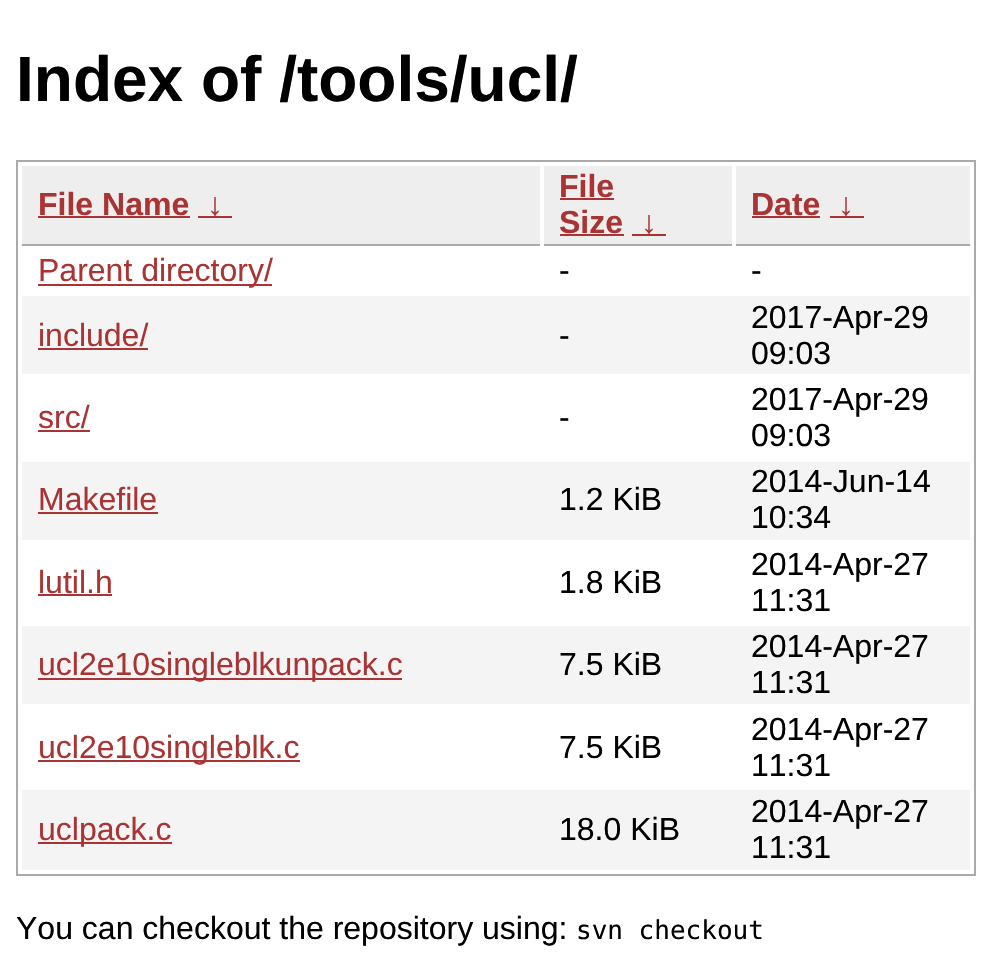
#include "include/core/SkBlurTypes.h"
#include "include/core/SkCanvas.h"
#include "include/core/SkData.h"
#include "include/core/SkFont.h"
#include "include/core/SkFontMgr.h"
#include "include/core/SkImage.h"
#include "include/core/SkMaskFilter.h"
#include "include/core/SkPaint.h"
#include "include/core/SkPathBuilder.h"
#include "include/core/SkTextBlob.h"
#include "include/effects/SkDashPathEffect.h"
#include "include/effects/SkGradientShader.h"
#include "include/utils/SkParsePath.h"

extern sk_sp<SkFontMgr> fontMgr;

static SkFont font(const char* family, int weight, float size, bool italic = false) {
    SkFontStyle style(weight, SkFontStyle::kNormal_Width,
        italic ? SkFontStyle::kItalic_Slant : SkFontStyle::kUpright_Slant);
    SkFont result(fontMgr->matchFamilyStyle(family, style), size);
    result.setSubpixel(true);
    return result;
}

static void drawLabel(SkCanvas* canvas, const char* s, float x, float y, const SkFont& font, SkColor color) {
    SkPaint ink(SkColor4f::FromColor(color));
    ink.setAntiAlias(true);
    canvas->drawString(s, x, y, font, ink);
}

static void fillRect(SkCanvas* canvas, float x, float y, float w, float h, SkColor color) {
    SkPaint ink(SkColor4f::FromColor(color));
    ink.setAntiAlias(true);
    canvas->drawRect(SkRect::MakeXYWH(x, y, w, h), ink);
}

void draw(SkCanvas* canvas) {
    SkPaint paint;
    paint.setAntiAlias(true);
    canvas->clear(0xFFFFFFFF);
    SkFont font1 = font("Liberation Sans", 700, 64);
    drawLabel(canvas, "Index of /tools/ucl/", 16, 101, font1, 0xFF000000);
    paint.setStroke(true);
    paint.setStrokeWidth(2);
    paint.setColor(0xFFAAAAAA);
    canvas->drawRect(SkRect::MakeXYWH(17, 161, 958, 714), paint);
    fillRect(canvas, 22, 166, 518, 78, 0xFFEEEEEE);
    fillRect(canvas, 22, 244, 518, 2, 0xFFAAAAAA);
    SkFont font2 = font("Liberation Sans", 700, 32);
    drawLabel(canvas, "File Name", 38, 215, font2, 0xFFAA3333);
    fillRect(canvas, 38, 216, 152, 2, 0xFFAA3333);
    drawLabel(canvas, "↓", 207, 215, font2, 0xFFAA3333);
    fillRect(canvas, 198, 216, 34, 2, 0xFFAA3333);
    fillRect(canvas, 544, 166, 188, 78, 0xFFEEEEEE);
    fillRect(canvas, 544, 244, 188, 2, 0xFFAAAAAA);
    drawLabel(canvas, "File", 559, 197, font2, 0xFFAA3333);
    fillRect(canvas, 560, 198, 54, 2, 0xFFAA3333);
    drawLabel(canvas, "Size", 559, 233, font2, 0xFFAA3333);
    fillRect(canvas, 560, 234, 64, 2, 0xFFAA3333);
    drawLabel(canvas, "↓", 641, 233, font2, 0xFFAA3333);
    fillRect(canvas, 632, 234, 34, 2, 0xFFAA3333);
    fillRect(canvas, 736, 166, 234, 78, 0xFFEEEEEE);
    fillRect(canvas, 736, 244, 234, 2, 0xFFAAAAAA);
    drawLabel(canvas, "Date", 751, 215, font2, 0xFFAA3333);
    fillRect(canvas, 752, 216, 68, 2, 0xFFAA3333);
    drawLabel(canvas, "↓", 838, 215, font2, 0xFFAA3333);
    fillRect(canvas, 830, 216, 34, 2, 0xFFAA3333);
    fillRect(canvas, 38, 284, 234, 2, 0xFFAA3333);
    SkFont font3 = font("Liberation Sans", 400, 32);
    drawLabel(canvas, "Parent directory/", 38, 281, font3, 0xFFAA3333);
    drawLabel(canvas, "-", 559, 281, font3, 0xFF000000);
    drawLabel(canvas, "-", 751, 281, font3, 0xFF000000);
    fillRect(canvas, 22, 296, 948, 78, 0xFFF4F4F4);
    drawLabel(canvas, "include/", 38, 346, font3, 0xFFAA3333);
    fillRect(canvas, 38, 348, 110, 2, 0xFFAA3333);
    drawLabel(canvas, "-", 559, 346, font3, 0xFF000000);
    drawLabel(canvas, "2017-Apr-29", 751, 328, font3, 0xFF000000);
    drawLabel(canvas, "09:03", 751, 364, font3, 0xFF000000);
    drawLabel(canvas, "src/", 38, 428, font3, 0xFFAA3333);
    fillRect(canvas, 38, 430, 52, 2, 0xFFAA3333);
    drawLabel(canvas, "-", 559, 428, font3, 0xFF000000);
    drawLabel(canvas, "2017-Apr-29", 751, 410, font3, 0xFF000000);
    drawLabel(canvas, "09:03", 751, 446, font3, 0xFF000000);
    fillRect(canvas, 22, 462, 948, 78, 0xFFF4F4F4);
    drawLabel(canvas, "Makefile", 38, 510, font3, 0xFFAA3333);
    fillRect(canvas, 38, 512, 120, 2, 0xFFAA3333);
    drawLabel(canvas, "1.2 KiB", 559, 510, font3, 0xFF000000);
    drawLabel(canvas, "2014-Jun-14", 751, 492, font3, 0xFF000000);
    drawLabel(canvas, "10:34", 751, 528, font3, 0xFF000000);
    drawLabel(canvas, "lutil.h", 38, 593, font3, 0xFFAA3333);
    fillRect(canvas, 38, 594, 74, 2, 0xFFAA3333);
    drawLabel(canvas, "1.8 KiB", 559, 593, font3, 0xFF000000);
    drawLabel(canvas, "2014-Apr-27", 751, 575, font3, 0xFF000000);
    drawLabel(canvas, "11:31", 751, 611, font3, 0xFF000000);
    fillRect(canvas, 22, 626, 948, 78, 0xFFF4F4F4);
    fillRect(canvas, 38, 678, 364, 2, 0xFFAA3333);
    drawLabel(canvas, "ucl2e10singleblkunpack.c", 38, 675, font3, 0xFFAA3333);
    drawLabel(canvas, "7.5 KiB", 559, 675, font3, 0xFF000000);
    drawLabel(canvas, "2014-Apr-27", 751, 657, font3, 0xFF000000);
    drawLabel(canvas, "11:31", 751, 693, font3, 0xFF000000);
    fillRect(canvas, 38, 760, 262, 2, 0xFFAA3333);
    drawLabel(canvas, "ucl2e10singleblk.c", 38, 758, font3, 0xFFAA3333);
    drawLabel(canvas, "7.5 KiB", 559, 758, font3, 0xFF000000);
    drawLabel(canvas, "2014-Apr-27", 751, 740, font3, 0xFF000000);
    drawLabel(canvas, "11:31", 751, 776, font3, 0xFF000000);
    fillRect(canvas, 22, 790, 948, 80, 0xFFF4F4F4);
    fillRect(canvas, 38, 842, 134, 2, 0xFFAA3333);
    drawLabel(canvas, "uclpack.c", 38, 840, font3, 0xFFAA3333);
    drawLabel(canvas, "18.0 KiB", 559, 840, font3, 0xFF000000);
    drawLabel(canvas, "2014-Apr-27", 751, 822, font3, 0xFF000000);
    drawLabel(canvas, "11:31", 751, 858, font3, 0xFF000000);
    drawLabel(canvas, "You can checkout the repository using:", 16, 939, font3, 0xFF000000);
    SkFont font4 = font("DejaVu Sans Mono", 400, 26);
    drawLabel(canvas, "svn checkout", 576, 939, font4, 0xFF000000);
}
